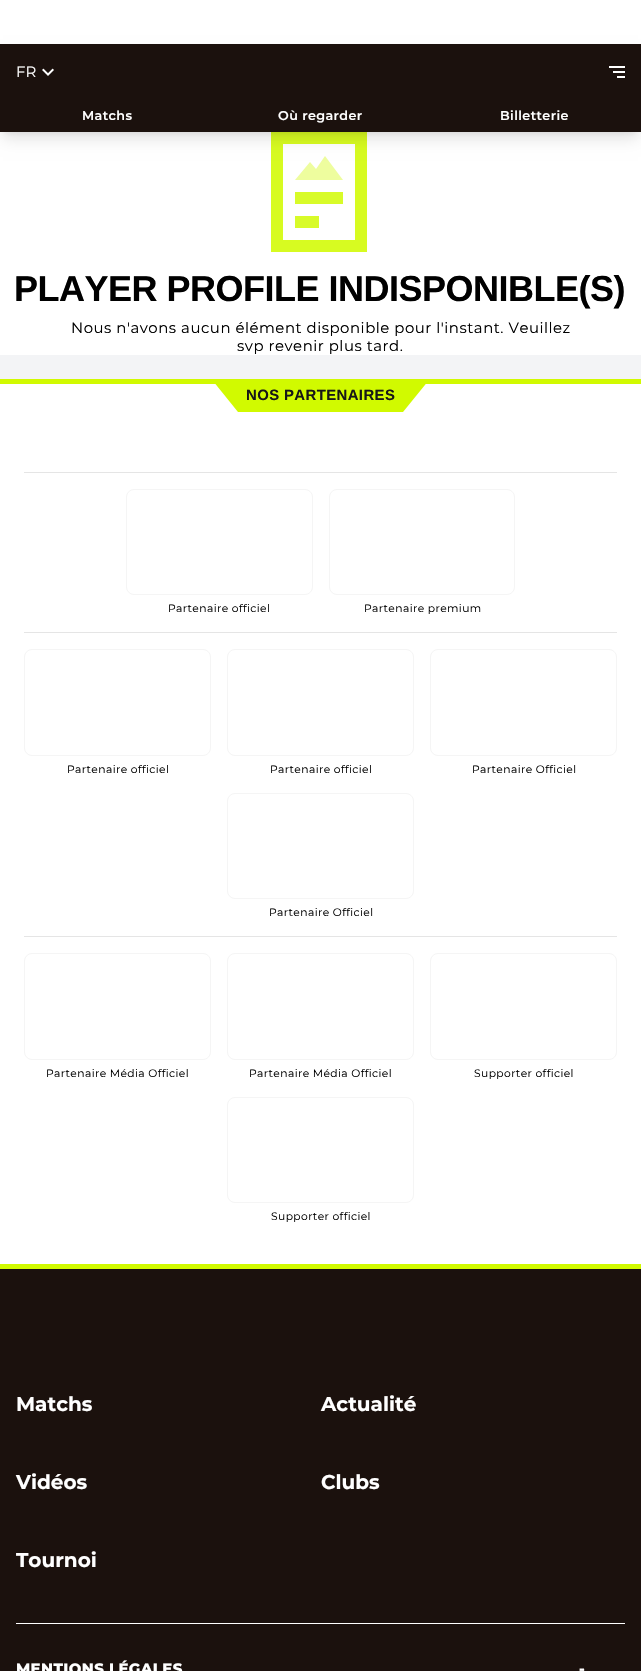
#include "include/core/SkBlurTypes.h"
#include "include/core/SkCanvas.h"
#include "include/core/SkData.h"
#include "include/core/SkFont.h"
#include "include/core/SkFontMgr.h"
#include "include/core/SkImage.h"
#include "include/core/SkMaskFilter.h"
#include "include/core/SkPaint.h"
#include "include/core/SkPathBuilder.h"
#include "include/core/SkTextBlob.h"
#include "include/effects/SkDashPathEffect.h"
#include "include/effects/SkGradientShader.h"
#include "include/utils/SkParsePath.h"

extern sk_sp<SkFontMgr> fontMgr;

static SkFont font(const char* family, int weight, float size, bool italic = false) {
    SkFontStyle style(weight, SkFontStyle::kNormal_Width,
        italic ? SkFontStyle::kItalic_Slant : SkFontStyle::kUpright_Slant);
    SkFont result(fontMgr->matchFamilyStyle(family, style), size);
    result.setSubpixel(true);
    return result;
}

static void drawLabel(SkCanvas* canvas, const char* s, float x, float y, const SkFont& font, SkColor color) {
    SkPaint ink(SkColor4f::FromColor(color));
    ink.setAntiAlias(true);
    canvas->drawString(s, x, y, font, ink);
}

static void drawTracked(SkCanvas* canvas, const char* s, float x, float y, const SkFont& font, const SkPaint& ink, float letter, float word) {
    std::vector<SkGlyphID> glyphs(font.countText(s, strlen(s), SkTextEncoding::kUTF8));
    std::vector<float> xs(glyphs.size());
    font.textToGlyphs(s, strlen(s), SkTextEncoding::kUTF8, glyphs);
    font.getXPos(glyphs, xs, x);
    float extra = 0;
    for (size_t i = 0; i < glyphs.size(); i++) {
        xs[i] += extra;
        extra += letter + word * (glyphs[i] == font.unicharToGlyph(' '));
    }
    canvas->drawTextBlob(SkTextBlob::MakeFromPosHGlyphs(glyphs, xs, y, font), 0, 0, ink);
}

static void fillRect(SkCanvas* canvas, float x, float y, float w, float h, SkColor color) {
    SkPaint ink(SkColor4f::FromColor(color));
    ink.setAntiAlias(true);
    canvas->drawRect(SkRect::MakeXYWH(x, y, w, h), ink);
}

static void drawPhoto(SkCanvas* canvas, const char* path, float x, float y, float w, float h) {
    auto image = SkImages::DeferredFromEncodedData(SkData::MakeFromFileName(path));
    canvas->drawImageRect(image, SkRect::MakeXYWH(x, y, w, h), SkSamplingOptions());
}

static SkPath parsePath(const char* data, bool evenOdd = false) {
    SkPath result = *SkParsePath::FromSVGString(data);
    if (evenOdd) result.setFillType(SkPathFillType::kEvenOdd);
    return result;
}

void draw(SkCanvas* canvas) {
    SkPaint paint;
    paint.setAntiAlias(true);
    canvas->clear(0xFFFFFFFF);
    paint.setColor(0xFFD7FB21);
    canvas->drawPath(parsePath("M355 144H283V240H355ZM271 132V252H367V132Z", true), paint);
    paint.setColor(0x1A000000);
    paint.setMaskFilter(SkMaskFilter::MakeBlur(kNormal_SkBlurStyle, 3));
    canvas->drawRect(SkRect::MakeXYWH(4, 52, 633, 80), paint);
    paint.setMaskFilter(nullptr);
    paint.setColor(0xFFEEFD9E);
    canvas->drawPath(parsePath("M343 180L325 156L316 169L310 162L295 180Z", true), paint);
    paint.setColor(0x1A000000);
    paint.setMaskFilter(SkMaskFilter::MakeBlur(kNormal_SkBlurStyle, 7.5f));
    canvas->drawRect(SkRect::MakeXYWH(3, 57, 635, 82), paint);
    paint.setMaskFilter(nullptr);
    fillRect(canvas, 0, 44, 641, 88, 0xFF1B110D);
    SkFont font1 = font("Montserrat", 400, 14.9f);
    drawLabel(canvas, "FR", 16, 77, font1, 0xFFFFFFFF);
    drawPhoto(canvas, "assets/img1.png", 42, 68, 12, 8);
    fillRect(canvas, 609, 66, 16, 2, 0xFFFFFFFF);
    fillRect(canvas, 613, 71, 12, 2, 0xFFFFFFFF);
    fillRect(canvas, 617, 76, 8, 2, 0xFFFFFFFF);
    SkFont font2 = font("Montserrat", 600, 12.75f);
    paint.setColor(0xFFFFFFFF);
    drawTracked(canvas, "Matchs", 82, 120, font2, paint, 0.4f, 0);
    drawTracked(canvas, "Où regarder", 278, 120, font2, paint, 0.4f, 0);
    drawTracked(canvas, "Billetterie", 500, 120, font2, paint, 0.4f, 0);
    fillRect(canvas, 295, 216, 24, 12, 0xFFD8FB29);
    fillRect(canvas, 295, 192, 48, 12, 0xFFD8FB29);
    SkFont font3 = font("Liberation Sans", 700, 36);
    paint.setColor(0xFF000000);
    drawTracked(canvas, "PLAYER PROFILE INDISPONIBLE(S)", 14, 301, font3, paint, -0.5f, 0);
    drawTracked(canvas, "Nous n'avons aucun élément disponible pour l'instant. Veuillez", 71, 333, font1, paint, 0.53f, 0);
    drawTracked(canvas, "svp revenir plus tard.", 237, 351, font1, paint, 0.53f, 0);
    fillRect(canvas, 0, 355, 641, 24, 0xFFF3F4F6);
    fillRect(canvas, 0, 379, 641, 5, 0xFFD1FA00);
    paint.setColor(0xFFD1FA00);
    canvas->drawPath(parsePath("M213 380H429L403 412H238L213 381Z"), paint);
    SkFont font4 = font("Liberation Sans", 700, 14.9f);
    paint.setColor(0xFF171717);
    drawTracked(canvas, "NOS PARTENAIRES", 246, 400, font4, paint, 0.4f, 0);
    fillRect(canvas, 24, 472, 593, 1, 0xFFE5E5E5);
    fillRect(canvas, 24, 632, 593, 1, 0xFFE5E5E5);
    paint.setStroke(true);
    paint.setStrokeWidth(1);
    paint.setColor(0xFFF5F5F5);
    canvas->drawRoundRect(SkRect::MakeXYWH(126.5f, 489.5f, 186, 105), 7.5f, 7.5f, paint);
    SkFont font5 = font("Montserrat", 400, 10.75f);
    paint.setStroke(false);
    paint.setColor(0xFF000000);
    drawTracked(canvas, "Partenaire officiel", 168, 612, font5, paint, 0.4f, 0);
    paint.setStroke(true);
    paint.setColor(0xFFF5F5F5);
    canvas->drawRoundRect(SkRect::MakeXYWH(329.5f, 489.5f, 185, 105), 7.5f, 7.5f, paint);
    paint.setStroke(false);
    paint.setColor(0xFF000000);
    drawTracked(canvas, "Partenaire premium", 364, 612, font5, paint, 0.4f, 0);
    fillRect(canvas, 24, 936, 593, 1, 0xFFE5E5E5);
    paint.setStroke(true);
    paint.setColor(0xFFF5F5F5);
    canvas->drawRoundRect(SkRect::MakeXYWH(24.5f, 649.5f, 186, 106), 7.5f, 7.5f, paint);
    paint.setStroke(false);
    paint.setColor(0xFF000000);
    drawTracked(canvas, "Partenaire officiel", 67, 773, font5, paint, 0.4f, 0);
    paint.setStroke(true);
    paint.setColor(0xFFF5F5F5);
    canvas->drawRoundRect(SkRect::MakeXYWH(227.5f, 649.5f, 186, 106), 7.5f, 7.5f, paint);
    paint.setStroke(false);
    paint.setColor(0xFF000000);
    drawTracked(canvas, "Partenaire officiel", 270, 773, font5, paint, 0.4f, 0);
    paint.setStroke(true);
    paint.setColor(0xFFF5F5F5);
    canvas->drawRoundRect(SkRect::MakeXYWH(430.5f, 649.5f, 186, 106), 7.5f, 7.5f, paint);
    paint.setStroke(false);
    paint.setColor(0xFF000000);
    drawTracked(canvas, "Partenaire Officiel", 472, 773, font5, paint, 0.4f, 0);
    paint.setStroke(true);
    paint.setColor(0xFFF5F5F5);
    canvas->drawRoundRect(SkRect::MakeXYWH(227.5f, 793.5f, 186, 105), 7.5f, 7.5f, paint);
    paint.setStroke(false);
    paint.setColor(0xFF000000);
    drawTracked(canvas, "Partenaire Officiel", 269, 916, font5, paint, 0.4f, 0);
    paint.setStroke(true);
    paint.setColor(0xFFF5F5F5);
    canvas->drawRoundRect(SkRect::MakeXYWH(24.5f, 953.5f, 186, 106), 7.5f, 7.5f, paint);
    paint.setStroke(false);
    paint.setColor(0xFF000000);
    drawTracked(canvas, "Partenaire Média Officiel", 46, 1077, font5, paint, 0.4f, 0);
    paint.setStroke(true);
    paint.setColor(0xFFF5F5F5);
    canvas->drawRoundRect(SkRect::MakeXYWH(227.5f, 953.5f, 186, 106), 7.5f, 7.5f, paint);
    paint.setStroke(false);
    paint.setColor(0xFF000000);
    drawTracked(canvas, "Partenaire Média Officiel", 249, 1077, font5, paint, 0.4f, 0);
    paint.setStroke(true);
    paint.setColor(0xFFF5F5F5);
    canvas->drawRoundRect(SkRect::MakeXYWH(430.5f, 953.5f, 186, 106), 7.5f, 7.5f, paint);
    paint.setStroke(false);
    paint.setColor(0xFF000000);
    drawTracked(canvas, "Supporter officiel", 474, 1077, font5, paint, 0.4f, 0);
    paint.setStroke(true);
    paint.setColor(0xFFF5F5F5);
    canvas->drawRoundRect(SkRect::MakeXYWH(227.5f, 1097.5f, 186, 105), 7.5f, 7.5f, paint);
    paint.setStroke(false);
    paint.setColor(0xFF000000);
    drawTracked(canvas, "Supporter officiel", 271, 1220, font5, paint, 0.4f, 0);
    fillRect(canvas, 0, 1269, 641, 402, 0xFF1B110D);
    fillRect(canvas, 0, 1264, 641, 5, 0xFFD1FA00);
    fillRect(canvas, 16, 1623, 609, 1, 0xFFFFFFFF);
    SkFont font6 = font("Montserrat", 700, 20);
    drawLabel(canvas, "Matchs", 16, 1411, font6, 0xFFFFFFFF);
    drawLabel(canvas, "Actualité", 321, 1411, font6, 0xFFFFFFFF);
    drawLabel(canvas, "Vidéos", 16, 1489, font6, 0xFFFFFFFF);
    drawLabel(canvas, "Clubs", 321, 1489, font6, 0xFFFFFFFF);
    drawLabel(canvas, "Tournoi", 16, 1567, font6, 0xFFFFFFFF);
    SkFont font7 = font("Montserrat", 800, 14.9f);
    paint.setColor(0xFFFFFFFF);
    drawTracked(canvas, "MENTIONS LÉGALES", 16, 1674, font7, paint, 0.4f, 0);
    drawTracked(canvas, "-", 579, 1674, font7, paint, 0.4f, 0);
}
